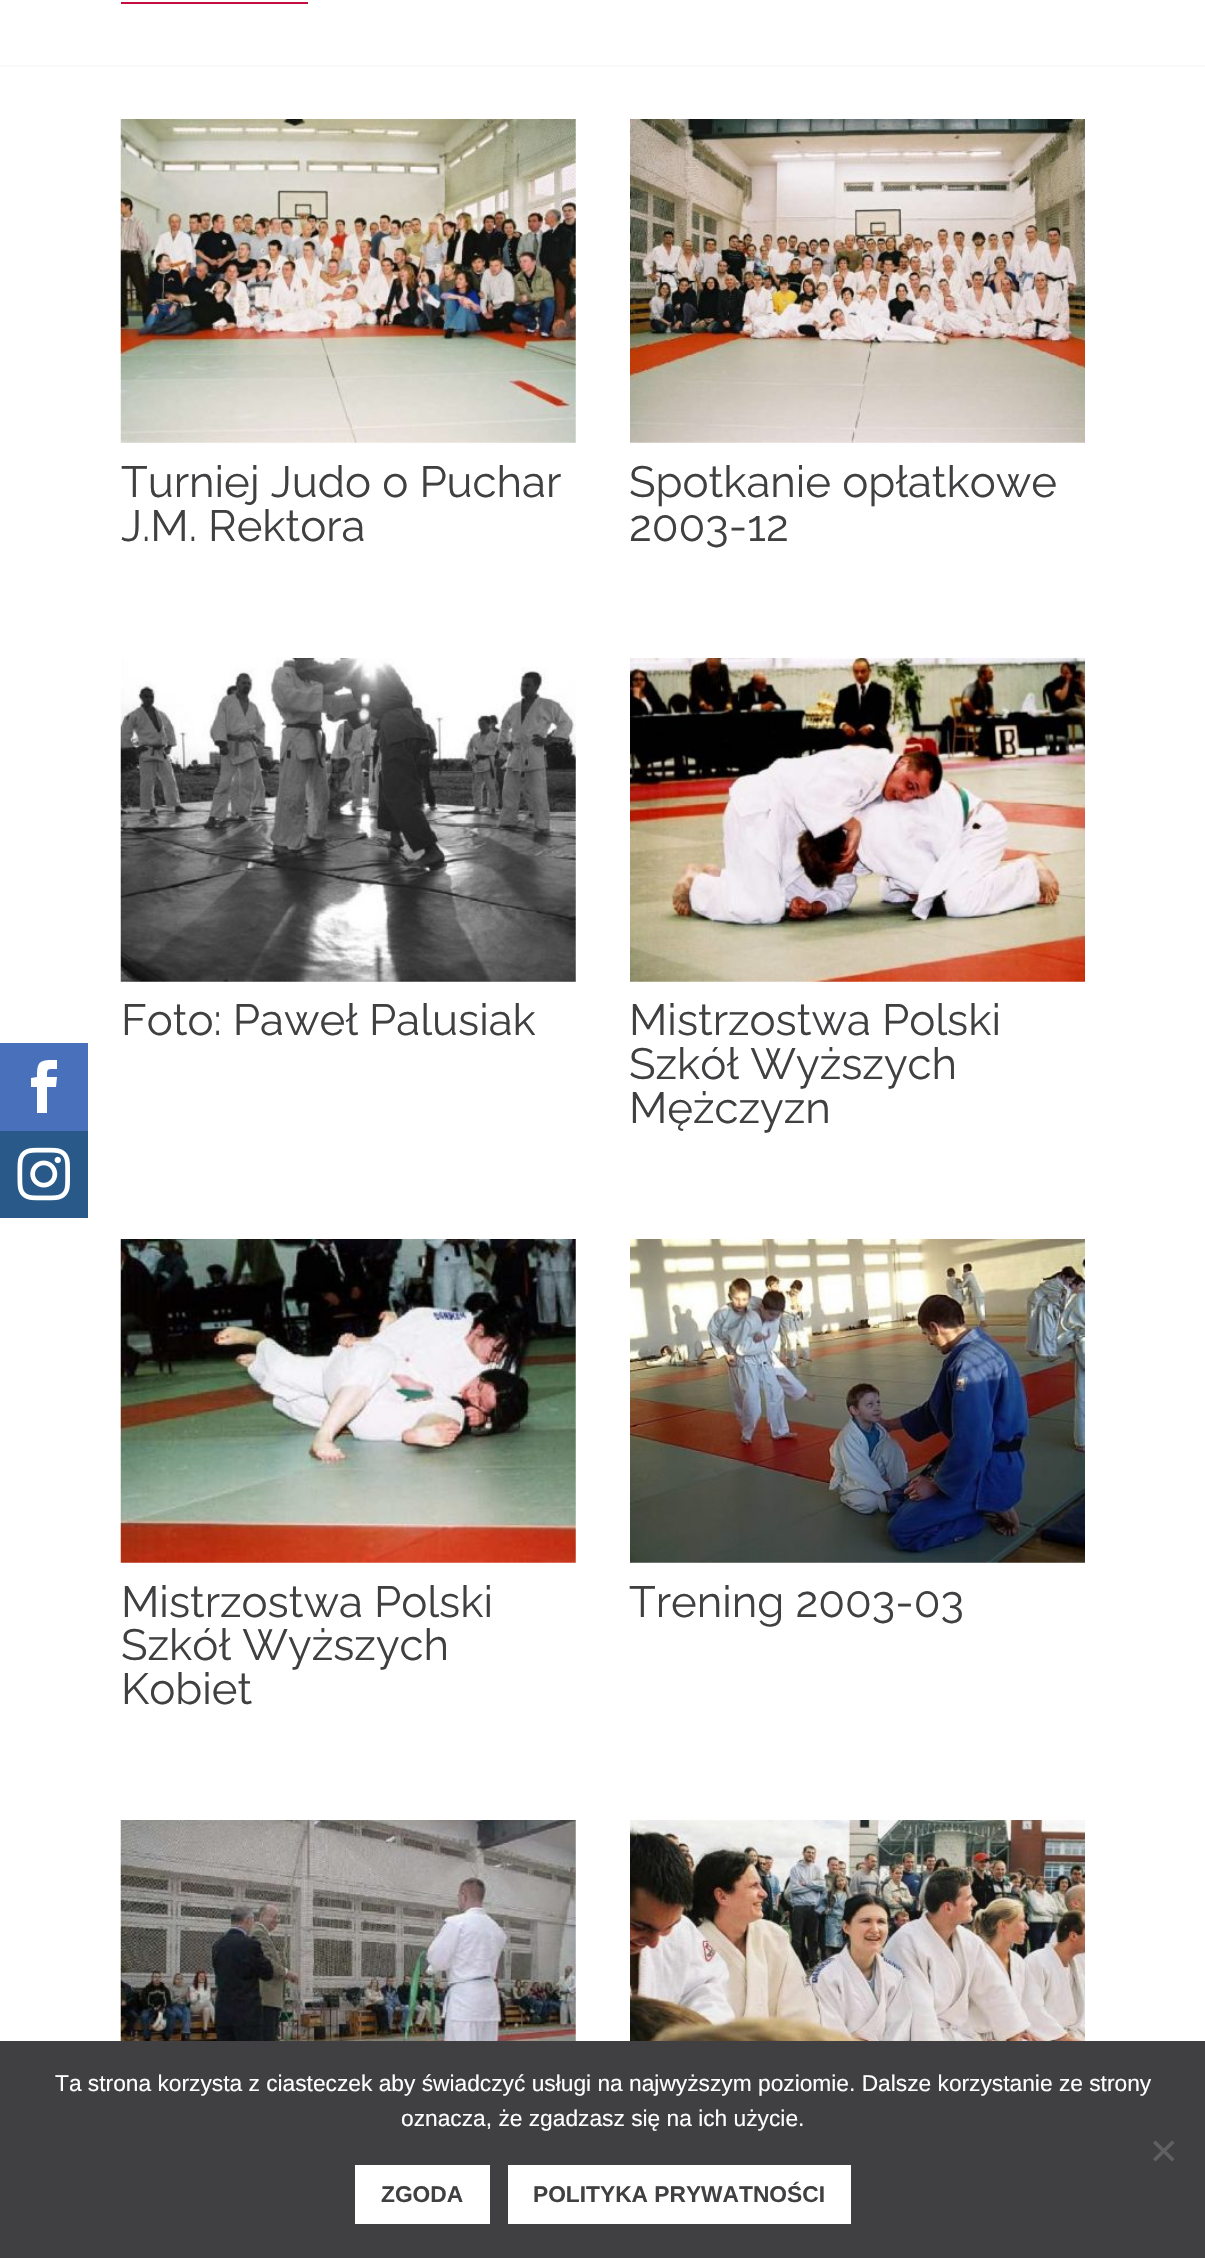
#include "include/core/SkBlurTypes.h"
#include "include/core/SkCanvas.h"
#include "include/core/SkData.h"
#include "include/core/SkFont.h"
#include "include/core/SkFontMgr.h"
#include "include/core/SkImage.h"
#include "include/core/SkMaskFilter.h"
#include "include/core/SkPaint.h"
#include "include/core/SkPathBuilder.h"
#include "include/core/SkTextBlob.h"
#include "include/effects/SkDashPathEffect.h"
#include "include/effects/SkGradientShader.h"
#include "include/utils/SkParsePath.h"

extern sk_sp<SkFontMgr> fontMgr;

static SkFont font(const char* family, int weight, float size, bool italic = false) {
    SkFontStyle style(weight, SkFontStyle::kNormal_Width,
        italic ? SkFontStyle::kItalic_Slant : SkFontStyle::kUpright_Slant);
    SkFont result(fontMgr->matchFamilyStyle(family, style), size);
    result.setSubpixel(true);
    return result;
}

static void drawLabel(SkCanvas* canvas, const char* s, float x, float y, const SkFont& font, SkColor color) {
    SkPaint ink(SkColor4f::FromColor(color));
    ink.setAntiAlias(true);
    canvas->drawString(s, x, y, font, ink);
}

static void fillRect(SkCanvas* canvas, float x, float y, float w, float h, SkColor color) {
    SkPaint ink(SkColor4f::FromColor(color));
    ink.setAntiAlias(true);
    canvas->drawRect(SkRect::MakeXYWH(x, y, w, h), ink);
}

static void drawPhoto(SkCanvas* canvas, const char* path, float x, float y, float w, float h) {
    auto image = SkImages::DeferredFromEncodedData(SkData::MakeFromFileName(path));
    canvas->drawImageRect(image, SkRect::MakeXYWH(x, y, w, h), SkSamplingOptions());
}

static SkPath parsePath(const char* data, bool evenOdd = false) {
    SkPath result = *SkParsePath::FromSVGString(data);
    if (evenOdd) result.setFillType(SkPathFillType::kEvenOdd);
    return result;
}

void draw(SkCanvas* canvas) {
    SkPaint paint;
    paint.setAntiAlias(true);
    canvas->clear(0xFFFFFFFF);
    fillRect(canvas, 0, 1043, 88, 88, 0xFF4870BB);
    paint.setColor(0xFFFFFFFF);
    canvas->drawPath(parsePath("M37 1113H47V1087H56L57 1077H47C47 1068 47 1069 57 1069V1060C40 1060 37 1060 37 1077L31 1078V1087H37Z"), paint);
    fillRect(canvas, 0, 1131, 88, 87, 0xFF285989);
    drawPhoto(canvas, "assets/img1.png", 17, 1147, 53, 54);
    fillRect(canvas, 0, 65, 1205, 2, 0xFFF9F9F9);
    fillRect(canvas, 121, 2, 187, 2, 0xFFC30E3F);
    drawPhoto(canvas, "assets/img2.png", 120, 119, 456, 324);
    SkFont font1 = font("Raleway", 400, 43.75f);
    drawLabel(canvas, "Turniej Judo o Puchar", 121, 497, font1, 0xFF404042);
    drawLabel(canvas, "J.M. Rektora", 121, 541, font1, 0xFF404042);
    drawPhoto(canvas, "assets/img3.png", 630, 119, 455, 324);
    drawLabel(canvas, "Spotkanie opłatkowe", 629, 497, font1, 0xFF404042);
    drawLabel(canvas, "2003-12", 629, 541, font1, 0xFF404042);
    drawPhoto(canvas, "assets/img4.png", 120, 658, 456, 324);
    drawLabel(canvas, "Foto: Paweł Palusiak", 121, 1035, font1, 0xFF404042);
    drawPhoto(canvas, "assets/img5.png", 630, 658, 455, 324);
    drawLabel(canvas, "Mistrzostwa Polski", 629, 1035, font1, 0xFF404042);
    drawLabel(canvas, "Szkół Wyższych", 629, 1079, font1, 0xFF404042);
    drawLabel(canvas, "Mężczyzn", 629, 1123, font1, 0xFF404042);
    drawPhoto(canvas, "assets/img6.png", 120, 1239, 456, 324);
    drawLabel(canvas, "Mistrzostwa Polski", 121, 1617, font1, 0xFF404042);
    drawLabel(canvas, "Szkół Wyższych", 121, 1660, font1, 0xFF404042);
    drawLabel(canvas, "Kobiet", 121, 1704, font1, 0xFF404042);
    drawPhoto(canvas, "assets/img7.png", 630, 1239, 455, 324);
    drawLabel(canvas, "Trening 2003-03", 629, 1617, font1, 0xFF404042);
    drawPhoto(canvas, "assets/img8.png", 120, 1820, 456, 221);
    drawPhoto(canvas, "assets/img9.png", 630, 1820, 455, 221);
    fillRect(canvas, 0, 2041, 1205, 217, 0xFF404042);
    SkFont font2 = font("Liberation Sans", 400, 22.75f);
    drawLabel(canvas, "Ta strona korzysta z ciasteczek aby świadczyć usługi na najwyższym poziomie. Dalsze korzystanie ze strony", 55, 2091, font2, 0xFFFFFFFF);
    drawLabel(canvas, "oznacza, że zgadzasz się na ich użycie.", 401, 2126, font2, 0xFFFFFFFF);
    paint.setColor(0xFF606061);
    canvas->drawPath(parsePath("M1172 2140.5L1174.5 2143L1155.5 2161.5L1153 2159Z"), paint);
    canvas->drawPath(parsePath("M1153 2143L1155.5 2140.5L1174.5 2159L1172 2161.5Z"), paint);
    fillRect(canvas, 355, 2165, 135, 59, 0xFFFFFFFF);
    SkFont font3 = font("Liberation Sans", 700, 22.75f);
    drawLabel(canvas, "ZGODA", 381, 2202, font3, 0xFF404042);
    fillRect(canvas, 508, 2165, 343, 59, 0xFFFFFFFF);
    drawLabel(canvas, "POLITYKA PRYWATNOŚCI", 533, 2202, font3, 0xFF404042);
}
